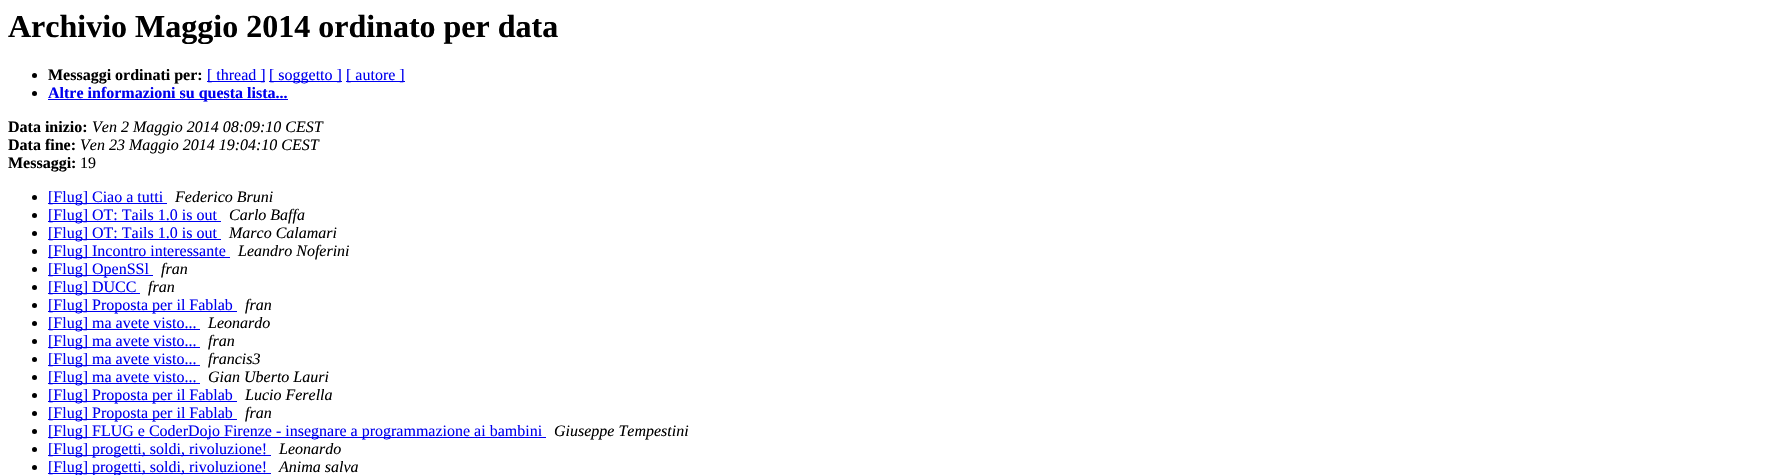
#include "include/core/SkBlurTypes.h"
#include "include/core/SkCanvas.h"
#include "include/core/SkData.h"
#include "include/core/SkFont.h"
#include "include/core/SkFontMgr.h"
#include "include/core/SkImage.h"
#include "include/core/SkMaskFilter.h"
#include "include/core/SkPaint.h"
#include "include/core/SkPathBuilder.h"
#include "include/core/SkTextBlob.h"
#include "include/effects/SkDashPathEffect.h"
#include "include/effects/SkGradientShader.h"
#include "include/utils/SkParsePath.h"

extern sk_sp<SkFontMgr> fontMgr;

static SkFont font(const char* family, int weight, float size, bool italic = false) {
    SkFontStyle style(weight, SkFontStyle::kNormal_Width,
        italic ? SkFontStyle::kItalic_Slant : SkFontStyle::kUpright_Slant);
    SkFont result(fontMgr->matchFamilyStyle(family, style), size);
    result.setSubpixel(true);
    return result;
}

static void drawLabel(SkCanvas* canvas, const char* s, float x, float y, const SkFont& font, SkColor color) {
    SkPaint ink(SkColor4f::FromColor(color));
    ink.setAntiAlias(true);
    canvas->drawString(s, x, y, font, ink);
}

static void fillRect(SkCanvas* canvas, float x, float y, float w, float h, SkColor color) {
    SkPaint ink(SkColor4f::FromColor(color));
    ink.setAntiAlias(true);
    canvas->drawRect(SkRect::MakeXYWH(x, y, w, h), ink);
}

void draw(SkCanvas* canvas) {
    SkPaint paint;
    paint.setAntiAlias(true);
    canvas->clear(0xFFFFFFFF);
    SkFont font1 = font("Liberation Serif", 700, 32);
    drawLabel(canvas, "Archivio Maggio 2014 ordinato per data", 8, 37, font1, 0xFF000000);
    paint.setColor(0xFF000000);
    canvas->drawCircle(34.5f, 75.5f, 2.5f, paint);
    SkFont font2 = font("Liberation Serif", 700, 16);
    drawLabel(canvas, "Messaggi ordinati per:", 48, 80, font2, 0xFF000000);
    fillRect(canvas, 207, 81, 58, 1, 0xFF0000EE);
    SkFont font3 = font("Liberation Serif", 400, 16);
    drawLabel(canvas, "[ thread ]", 207, 80, font3, 0xFF0000EE);
    fillRect(canvas, 269, 81, 73, 1, 0xFF0000EE);
    drawLabel(canvas, "[ soggetto ]", 269, 80, font3, 0xFF0000EE);
    fillRect(canvas, 346, 81, 59, 1, 0xFF0000EE);
    drawLabel(canvas, "[ autore ]", 346, 80, font3, 0xFF0000EE);
    canvas->drawCircle(34.5f, 93.5f, 2.5f, paint);
    fillRect(canvas, 48, 99, 240, 1, 0xFF0000EE);
    drawLabel(canvas, "Altre informazioni su questa lista...", 48, 98, font2, 0xFF0000EE);
    drawLabel(canvas, "Data inizio:", 8, 132, font2, 0xFF000000);
    SkFont font4 = font("Liberation Serif", 400, 16, true);
    drawLabel(canvas, "Ven 2 Maggio 2014 08:09:10 CEST", 92, 132, font4, 0xFF000000);
    drawLabel(canvas, "Data fine:", 8, 150, font2, 0xFF000000);
    drawLabel(canvas, "Ven 23 Maggio 2014 19:04:10 CEST", 80, 150, font4, 0xFF000000);
    drawLabel(canvas, "Messaggi:", 8, 168, font2, 0xFF000000);
    drawLabel(canvas, "19", 80, 168, font3, 0xFF000000);
    canvas->drawCircle(34.5f, 197.5f, 2.5f, paint);
    fillRect(canvas, 48, 203, 119, 1, 0xFF0000EE);
    drawLabel(canvas, "[Flug] Ciao a tutti", 48, 202, font3, 0xFF0000EE);
    drawLabel(canvas, "Federico Bruni", 175, 202, font4, 0xFF000000);
    canvas->drawCircle(34.5f, 215.5f, 2.5f, paint);
    fillRect(canvas, 48, 221, 173, 1, 0xFF0000EE);
    drawLabel(canvas, "[Flug] OT: Tails 1.0 is out", 48, 220, font3, 0xFF0000EE);
    drawLabel(canvas, "Carlo Baffa", 229, 220, font4, 0xFF000000);
    canvas->drawCircle(34.5f, 233.5f, 2.5f, paint);
    fillRect(canvas, 48, 239, 173, 1, 0xFF0000EE);
    drawLabel(canvas, "[Flug] OT: Tails 1.0 is out", 48, 238, font3, 0xFF0000EE);
    drawLabel(canvas, "Marco Calamari", 229, 238, font4, 0xFF000000);
    canvas->drawCircle(34.5f, 251.5f, 2.5f, paint);
    fillRect(canvas, 48, 257, 182, 1, 0xFF0000EE);
    drawLabel(canvas, "[Flug] Incontro interessante", 48, 256, font3, 0xFF0000EE);
    drawLabel(canvas, "Leandro Noferini", 238, 256, font4, 0xFF000000);
    canvas->drawCircle(34.5f, 269.5f, 2.5f, paint);
    fillRect(canvas, 48, 275, 105, 1, 0xFF0000EE);
    drawLabel(canvas, "[Flug] OpenSSl", 48, 274, font3, 0xFF0000EE);
    drawLabel(canvas, "fran", 161, 274, font4, 0xFF000000);
    canvas->drawCircle(34.5f, 287.5f, 2.5f, paint);
    fillRect(canvas, 48, 293, 92, 1, 0xFF0000EE);
    drawLabel(canvas, "[Flug] DUCC", 48, 292, font3, 0xFF0000EE);
    drawLabel(canvas, "fran", 148, 292, font4, 0xFF000000);
    canvas->drawCircle(34.5f, 305.5f, 2.5f, paint);
    fillRect(canvas, 48, 311, 189, 1, 0xFF0000EE);
    drawLabel(canvas, "[Flug] Proposta per il Fablab", 48, 310, font3, 0xFF0000EE);
    drawLabel(canvas, "fran", 245, 310, font4, 0xFF000000);
    canvas->drawCircle(34.5f, 323.5f, 2.5f, paint);
    fillRect(canvas, 48, 329, 152, 1, 0xFF0000EE);
    drawLabel(canvas, "[Flug] ma avete visto...", 48, 328, font3, 0xFF0000EE);
    drawLabel(canvas, "Leonardo", 208, 328, font4, 0xFF000000);
    canvas->drawCircle(34.5f, 341.5f, 2.5f, paint);
    fillRect(canvas, 48, 347, 152, 1, 0xFF0000EE);
    drawLabel(canvas, "[Flug] ma avete visto...", 48, 346, font3, 0xFF0000EE);
    drawLabel(canvas, "fran", 208, 346, font4, 0xFF000000);
    canvas->drawCircle(34.5f, 359.5f, 2.5f, paint);
    fillRect(canvas, 48, 365, 152, 1, 0xFF0000EE);
    drawLabel(canvas, "[Flug] ma avete visto...", 48, 364, font3, 0xFF0000EE);
    drawLabel(canvas, "francis3", 208, 364, font4, 0xFF000000);
    canvas->drawCircle(34.5f, 377.5f, 2.5f, paint);
    fillRect(canvas, 48, 383, 152, 1, 0xFF0000EE);
    drawLabel(canvas, "[Flug] ma avete visto...", 48, 382, font3, 0xFF0000EE);
    drawLabel(canvas, "Gian Uberto Lauri", 208, 382, font4, 0xFF000000);
    canvas->drawCircle(34.5f, 395.5f, 2.5f, paint);
    fillRect(canvas, 48, 401, 189, 1, 0xFF0000EE);
    drawLabel(canvas, "[Flug] Proposta per il Fablab", 48, 400, font3, 0xFF0000EE);
    drawLabel(canvas, "Lucio Ferella", 245, 400, font4, 0xFF000000);
    canvas->drawCircle(34.5f, 413.5f, 2.5f, paint);
    fillRect(canvas, 48, 419, 189, 1, 0xFF0000EE);
    drawLabel(canvas, "[Flug] Proposta per il Fablab", 48, 418, font3, 0xFF0000EE);
    drawLabel(canvas, "fran", 245, 418, font4, 0xFF000000);
    canvas->drawCircle(34.5f, 431.5f, 2.5f, paint);
    fillRect(canvas, 48, 437, 498, 1, 0xFF0000EE);
    drawLabel(canvas, "[Flug] FLUG e CoderDojo Firenze - insegnare a programmazione ai bambini", 48, 436, font3, 0xFF0000EE);
    drawLabel(canvas, "Giuseppe Tempestini", 554, 436, font4, 0xFF000000);
    canvas->drawCircle(34.5f, 449.5f, 2.5f, paint);
    fillRect(canvas, 48, 455, 223, 1, 0xFF0000EE);
    drawLabel(canvas, "[Flug] progetti, soldi, rivoluzione!", 48, 454, font3, 0xFF0000EE);
    drawLabel(canvas, "Leonardo", 279, 454, font4, 0xFF000000);
    canvas->drawCircle(34.5f, 467.5f, 2.5f, paint);
    fillRect(canvas, 48, 473, 223, 1, 0xFF0000EE);
    drawLabel(canvas, "[Flug] progetti, soldi, rivoluzione!", 48, 472, font3, 0xFF0000EE);
    drawLabel(canvas, "Anima salva", 279, 472, font4, 0xFF000000);
}
